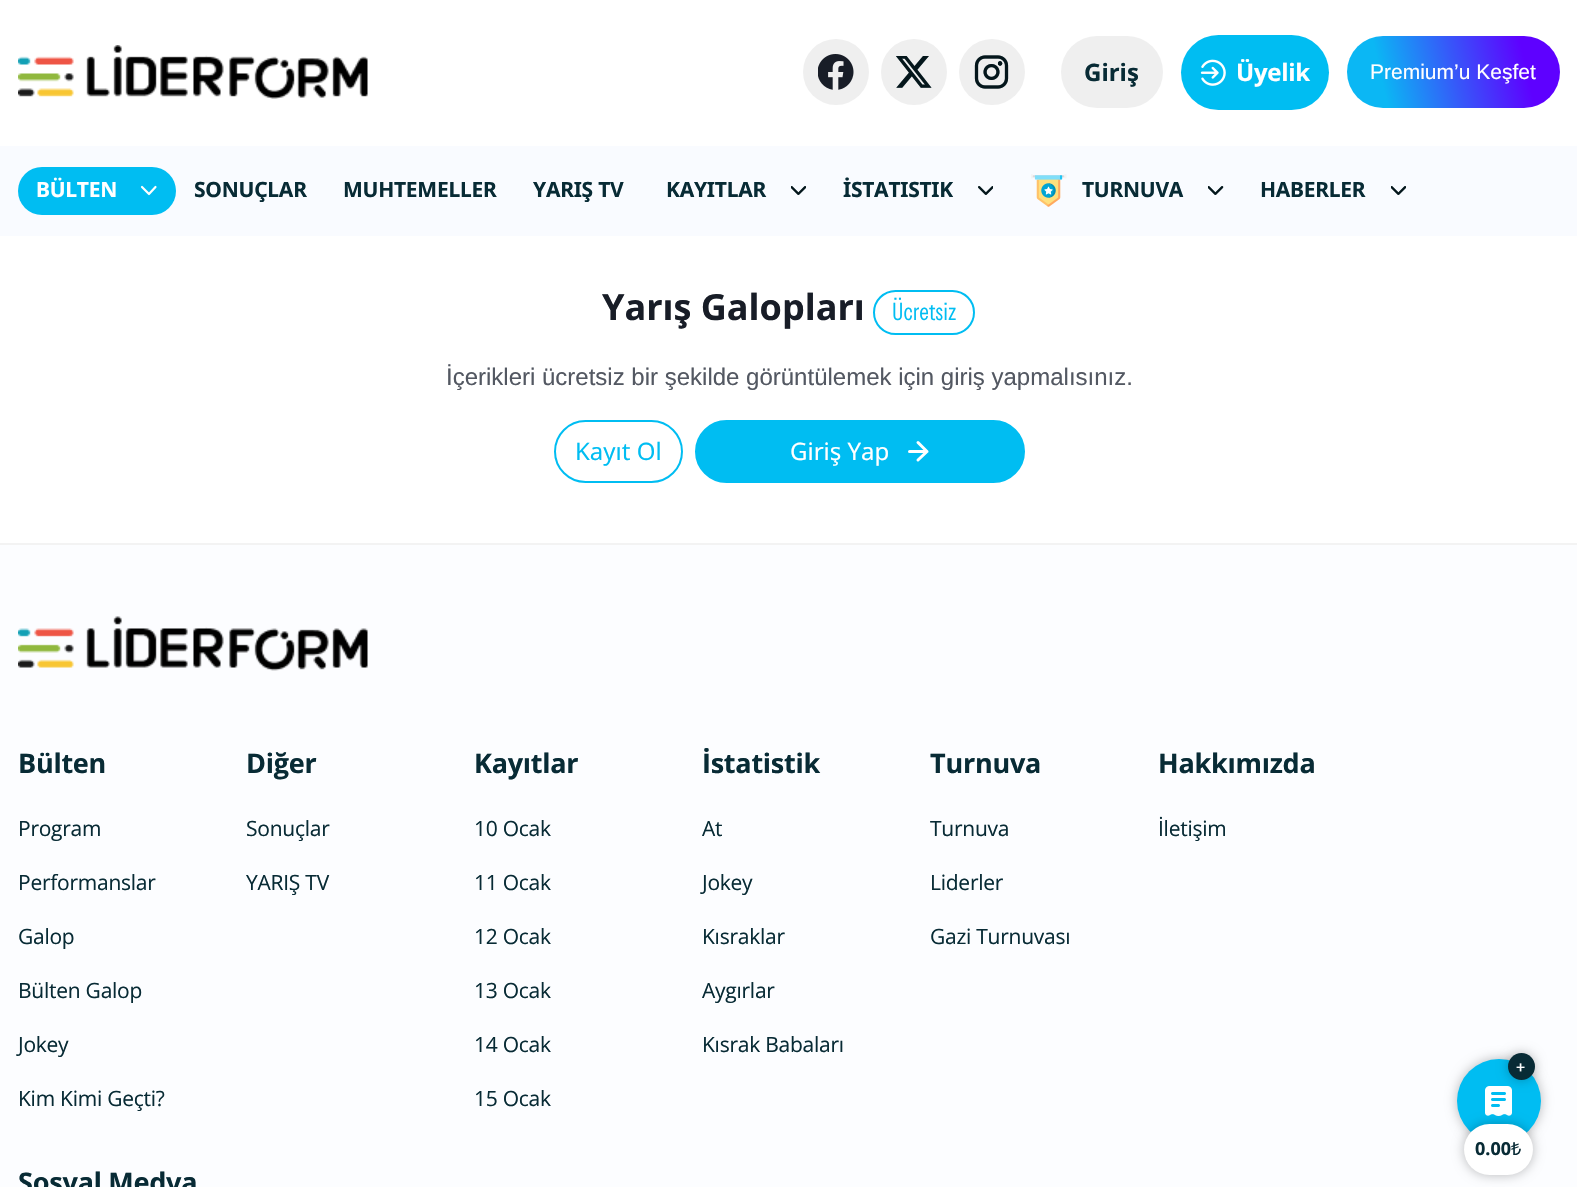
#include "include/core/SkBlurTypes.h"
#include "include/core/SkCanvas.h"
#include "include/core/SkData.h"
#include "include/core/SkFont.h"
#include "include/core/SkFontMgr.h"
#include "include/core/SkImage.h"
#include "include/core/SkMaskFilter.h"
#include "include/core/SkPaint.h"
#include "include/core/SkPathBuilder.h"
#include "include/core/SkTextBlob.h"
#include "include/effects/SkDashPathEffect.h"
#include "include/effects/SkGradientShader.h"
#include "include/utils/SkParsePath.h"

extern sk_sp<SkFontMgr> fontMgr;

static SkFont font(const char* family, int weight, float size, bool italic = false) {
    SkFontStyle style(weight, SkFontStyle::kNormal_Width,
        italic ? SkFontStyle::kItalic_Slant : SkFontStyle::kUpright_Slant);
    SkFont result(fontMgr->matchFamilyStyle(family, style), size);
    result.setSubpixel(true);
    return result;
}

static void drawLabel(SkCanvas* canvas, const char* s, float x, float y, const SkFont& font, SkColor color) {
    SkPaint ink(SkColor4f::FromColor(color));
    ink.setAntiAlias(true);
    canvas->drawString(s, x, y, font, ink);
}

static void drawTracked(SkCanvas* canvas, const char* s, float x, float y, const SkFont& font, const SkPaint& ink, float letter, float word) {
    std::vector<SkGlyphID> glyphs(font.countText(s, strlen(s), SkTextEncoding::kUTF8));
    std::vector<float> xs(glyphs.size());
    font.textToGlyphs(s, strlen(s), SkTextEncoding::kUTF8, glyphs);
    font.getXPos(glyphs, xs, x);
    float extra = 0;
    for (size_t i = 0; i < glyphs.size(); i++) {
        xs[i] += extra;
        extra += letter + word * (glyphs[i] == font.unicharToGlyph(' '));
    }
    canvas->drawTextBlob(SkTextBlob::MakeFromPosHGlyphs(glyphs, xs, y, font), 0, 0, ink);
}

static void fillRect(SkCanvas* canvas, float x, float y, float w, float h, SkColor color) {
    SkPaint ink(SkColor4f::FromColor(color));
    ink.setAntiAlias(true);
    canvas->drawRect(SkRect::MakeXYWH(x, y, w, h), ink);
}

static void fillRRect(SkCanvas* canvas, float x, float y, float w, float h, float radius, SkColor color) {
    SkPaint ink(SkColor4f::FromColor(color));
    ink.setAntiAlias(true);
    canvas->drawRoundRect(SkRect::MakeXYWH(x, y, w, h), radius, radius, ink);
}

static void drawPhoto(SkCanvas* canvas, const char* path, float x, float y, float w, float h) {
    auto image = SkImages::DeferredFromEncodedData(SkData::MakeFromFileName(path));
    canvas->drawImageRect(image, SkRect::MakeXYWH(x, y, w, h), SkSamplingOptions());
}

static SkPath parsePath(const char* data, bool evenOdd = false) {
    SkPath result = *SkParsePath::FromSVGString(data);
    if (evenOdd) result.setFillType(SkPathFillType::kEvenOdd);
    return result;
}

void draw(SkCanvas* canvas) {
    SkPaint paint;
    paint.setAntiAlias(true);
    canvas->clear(0xFFFFFFFF);
    drawPhoto(canvas, "assets/img1.png", 18, 45, 350, 54);
    paint.setColor(0xFFEFEFEF);
    canvas->drawCircle(836, 72, 33, paint);
    drawPhoto(canvas, "assets/img2.png", 818, 54, 36, 36);
    canvas->drawCircle(914, 72, 33, paint);
    drawPhoto(canvas, "assets/img3.png", 896, 56, 36, 32);
    canvas->drawCircle(992, 72, 33, paint);
    drawPhoto(canvas, "assets/img4.png", 974, 55, 35, 34);
    fillRRect(canvas, 1061, 36, 102, 72, 36, 0xFFEFEFEF);
    SkFont font1 = font("Open Sans", 700, 24);
    drawLabel(canvas, "Giriş", 1084, 81, font1, 0xFF082B35);
    fillRRect(canvas, 1181, 35, 148, 75, 37.5f, 0xFF00BDF2);
    drawPhoto(canvas, "assets/img5.png", 1200, 59, 26, 27);
    paint.setColor(0xFFFFFFFF);
    drawTracked(canvas, "Üyelik", 1236, 81, font1, paint, -0.25f, 0);
    {
        const SkColor colors[] = {0xFF0BB7F4, 0xFF3659F9, 0xFF5E01FF};
        const float stops[] = {0.18f, 0.5f, 0.82f};
        const SkPoint ends[] = {{1344, 97}, {1563, 47}};
        paint.setShader(SkGradientShader::MakeLinear(ends, colors, stops, 3, SkTileMode::kClamp));
        paint.setAlpha(255);
    }
    canvas->drawRoundRect(SkRect::MakeXYWH(1347, 36, 213, 72), 36, 36, paint);
    SkFont font2 = font("Liberation Sans", 400, 21);
    drawLabel(canvas, "Premium’u Keşfet", 1370, 79, font2, 0xFFFFFFFF);
    fillRect(canvas, 0, 146, 1577, 90, 0xFFF9FBFF);
    fillRRect(canvas, 18, 167, 158, 48, 24, 0xFF00BDF2);
    SkFont font3 = font("Noto Sans", 700, 21);
    paint.setShader(nullptr);
    paint.setColor(0xFFFFFFFF);
    drawTracked(canvas, "BÜLTEN", 36, 197, font3, paint, -0.25f, 0);
    paint.setStroke(true);
    paint.setStrokeWidth(2.2f);
    paint.setStrokeCap(SkPaint::kRound_Cap);
    paint.setStrokeJoin(SkPaint::kRound_Join);
    canvas->drawPath(parsePath("M142 187L149 194L155.5 187"), paint);
    paint.setStroke(false);
    paint.setColor(0xFF082B35);
    drawTracked(canvas, "SONUÇLAR", 194, 197, font3, paint, -0.25f, 0);
    drawTracked(canvas, "MUHTEMELLER", 343, 197, font3, paint, -0.25f, 0);
    drawTracked(canvas, "YARIŞ TV", 533, 197, font3, paint, -0.25f, 0);
    drawTracked(canvas, "KAYITLAR", 666, 197, font3, paint, -0.25f, 0);
    drawPhoto(canvas, "assets/img6.png", 791, 186, 15, 9);
    drawTracked(canvas, "İSTATISTIK", 843, 197, font3, paint, -0.25f, 0);
    drawPhoto(canvas, "assets/img7.png", 978, 186, 15, 9);
    drawPhoto(canvas, "assets/img8.png", 1031, 174, 36, 33);
    drawTracked(canvas, "TURNUVA", 1082, 197, font3, paint, -0.25f, 0);
    drawPhoto(canvas, "assets/img9.png", 1208, 186, 16, 9);
    drawTracked(canvas, "HABERLER", 1260, 197, font3, paint, -0.25f, 0);
    drawPhoto(canvas, "assets/img6.png", 1391, 186, 15, 9);
    SkFont font4 = font("Open Sans", 700, 36);
    drawLabel(canvas, "Yarış Galopları", 602, 320, font4, 0xFF181D27);
    paint.setStroke(true);
    paint.setStrokeWidth(2);
    paint.setStrokeCap(SkPaint::kButt_Cap);
    paint.setStrokeJoin(SkPaint::kMiter_Join);
    paint.setColor(0xFF00BDF2);
    canvas->drawRoundRect(SkRect::MakeXYWH(874, 291, 100, 43), 21.5f, 21.5f, paint);
    SkFont font5 = font("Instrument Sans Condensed", 400, 24);
    drawLabel(canvas, "Ücretsiz", 892, 320, font5, 0xFF00BDF2);
    SkFont font6 = font("Liberation Sans", 400, 24);
    drawLabel(canvas, "İçerikleri ücretsiz bir şekilde görüntülemek için giriş yapmalısınız.", 446, 385, font6, 0xFF535862);
    canvas->drawRoundRect(SkRect::MakeXYWH(555, 421, 127, 61), 30.5f, 30.5f, paint);
    SkFont font7 = font("Noto Sans", 400, 24);
    drawLabel(canvas, "Kayıt Ol", 575, 460, font7, 0xFF00BDF2);
    paint.setStroke(false);
    canvas->drawRoundRect(SkRect::MakeXYWH(696, 421, 328, 61), 30.5f, 30.5f, paint);
    paint.setStroke(true);
    canvas->drawRoundRect(SkRect::MakeXYWH(696, 421, 328, 61), 30.5f, 30.5f, paint);
    drawLabel(canvas, "Giriş Yap", 790, 460, font7, 0xFFFFFFFF);
    paint.setStrokeWidth(3);
    paint.setStrokeCap(SkPaint::kRound_Cap);
    paint.setStrokeJoin(SkPaint::kRound_Join);
    paint.setColor(0xFFFFFFFF);
    canvas->drawPath(parsePath("M909.5 451.5H927M927 451.5L918 442.5M927 451.5L918 460"), paint);
    fillRect(canvas, 0, 545, 1577, 642, 0xFFFCFDFF);
    fillRect(canvas, 0, 543, 1577, 2, 0xFFF3F3F3);
    drawPhoto(canvas, "assets/img10.png", 18, 616, 350, 55);
    SkFont font8 = font("Open Sans", 700, 27);
    paint.setStroke(false);
    paint.setColor(0xFF082B35);
    drawTracked(canvas, "Bülten", 18, 773, font8, paint, -0.25f, 0);
    SkFont font9 = font("Open Sans", 400, 21);
    drawTracked(canvas, "Program", 18, 836, font9, paint, -0.25f, 0);
    drawTracked(canvas, "Performanslar", 18, 890, font9, paint, -0.25f, 0);
    drawTracked(canvas, "Galop", 18, 944, font9, paint, -0.25f, 0);
    drawTracked(canvas, "Bülten Galop", 18, 998, font9, paint, -0.25f, 0);
    drawTracked(canvas, "Jokey", 18, 1052, font9, paint, -0.25f, 0);
    drawTracked(canvas, "Kim Kimi Geçti?", 18, 1106, font9, paint, -0.25f, 0);
    drawTracked(canvas, "Diğer", 246, 773, font8, paint, -0.25f, 0);
    drawTracked(canvas, "Sonuçlar", 246, 836, font9, paint, -0.25f, 0);
    drawTracked(canvas, "YARIŞ TV", 246, 890, font9, paint, -0.25f, 0);
    drawTracked(canvas, "Kayıtlar", 474, 773, font8, paint, -0.25f, 0);
    drawTracked(canvas, "10 Ocak", 474, 836, font9, paint, -0.25f, 0);
    drawTracked(canvas, "11 Ocak", 474, 890, font9, paint, -0.25f, 0);
    drawTracked(canvas, "12 Ocak", 474, 944, font9, paint, -0.25f, 0);
    drawTracked(canvas, "13 Ocak", 474, 998, font9, paint, -0.25f, 0);
    drawTracked(canvas, "14 Ocak", 474, 1052, font9, paint, -0.25f, 0);
    drawTracked(canvas, "15 Ocak", 474, 1106, font9, paint, -0.25f, 0);
    drawTracked(canvas, "İstatistik", 702, 773, font8, paint, -0.25f, 0);
    drawTracked(canvas, "At", 702, 836, font9, paint, -0.25f, 0);
    drawTracked(canvas, "Jokey", 702, 890, font9, paint, -0.25f, 0);
    drawTracked(canvas, "Kısraklar", 702, 944, font9, paint, -0.25f, 0);
    drawTracked(canvas, "Aygırlar", 702, 998, font9, paint, -0.25f, 0);
    drawTracked(canvas, "Kısrak Babaları", 702, 1052, font9, paint, -0.25f, 0);
    drawTracked(canvas, "Turnuva", 930, 773, font8, paint, -0.25f, 0);
    drawTracked(canvas, "Turnuva", 930, 836, font9, paint, -0.25f, 0);
    drawTracked(canvas, "Liderler", 930, 890, font9, paint, -0.25f, 0);
    drawTracked(canvas, "Gazi Turnuvası", 930, 944, font9, paint, -0.25f, 0);
    drawTracked(canvas, "Hakkımızda", 1158, 773, font8, paint, -0.25f, 0);
    drawTracked(canvas, "İletişim", 1158, 836, font9, paint, -0.25f, 0);
    SkFont font10 = font("Noto Sans", 700, 27);
    drawTracked(canvas, "Sosyal Medya", 18, 1192, font10, paint, -0.25f, 0);
    paint.setColor(0x45000000);
    paint.setMaskFilter(SkMaskFilter::MakeBlur(kNormal_SkBlurStyle, 6));
    canvas->drawRoundRect(SkRect::MakeXYWH(1457, 1059, 84, 84), 42, 42, paint);
    paint.setMaskFilter(nullptr);
    paint.setColor(0xFF00BDF2);
    canvas->drawCircle(1499, 1101, 42, paint);
    drawPhoto(canvas, "assets/img11.png", 1485, 1086, 27, 30);
    paint.setColor(0x45000000);
    paint.setMaskFilter(SkMaskFilter::MakeBlur(kNormal_SkBlurStyle, 6));
    canvas->drawRoundRect(SkRect::MakeXYWH(1508, 1053, 27, 27), 13.5f, 13.5f, paint);
    paint.setMaskFilter(nullptr);
    paint.setColor(0xFF082B35);
    canvas->drawCircle(1521.5f, 1066.5f, 13.5f, paint);
    SkFont font11 = font("Open Sans", 600, 16);
    drawLabel(canvas, "+", 1516, 1073, font11, 0xFFFFFFFF);
    paint.setColor(0x45000000);
    paint.setMaskFilter(SkMaskFilter::MakeBlur(kNormal_SkBlurStyle, 6));
    canvas->drawRoundRect(SkRect::MakeXYWH(1464, 1124, 69, 51), 25.5f, 25.5f, paint);
    paint.setMaskFilter(nullptr);
    fillRRect(canvas, 1464, 1124, 69, 51, 25.5f, 0xFFFFFFFF);
    SkFont font12 = font("Open Sans", 700, 18);
    drawLabel(canvas, "0.00", 1475, 1155, font12, 0xFF082B35);
    SkFont font13 = font("Noto Sans", 400, 18);
    drawLabel(canvas, "₺", 1511, 1155, font13, 0xFF082B35);
}
